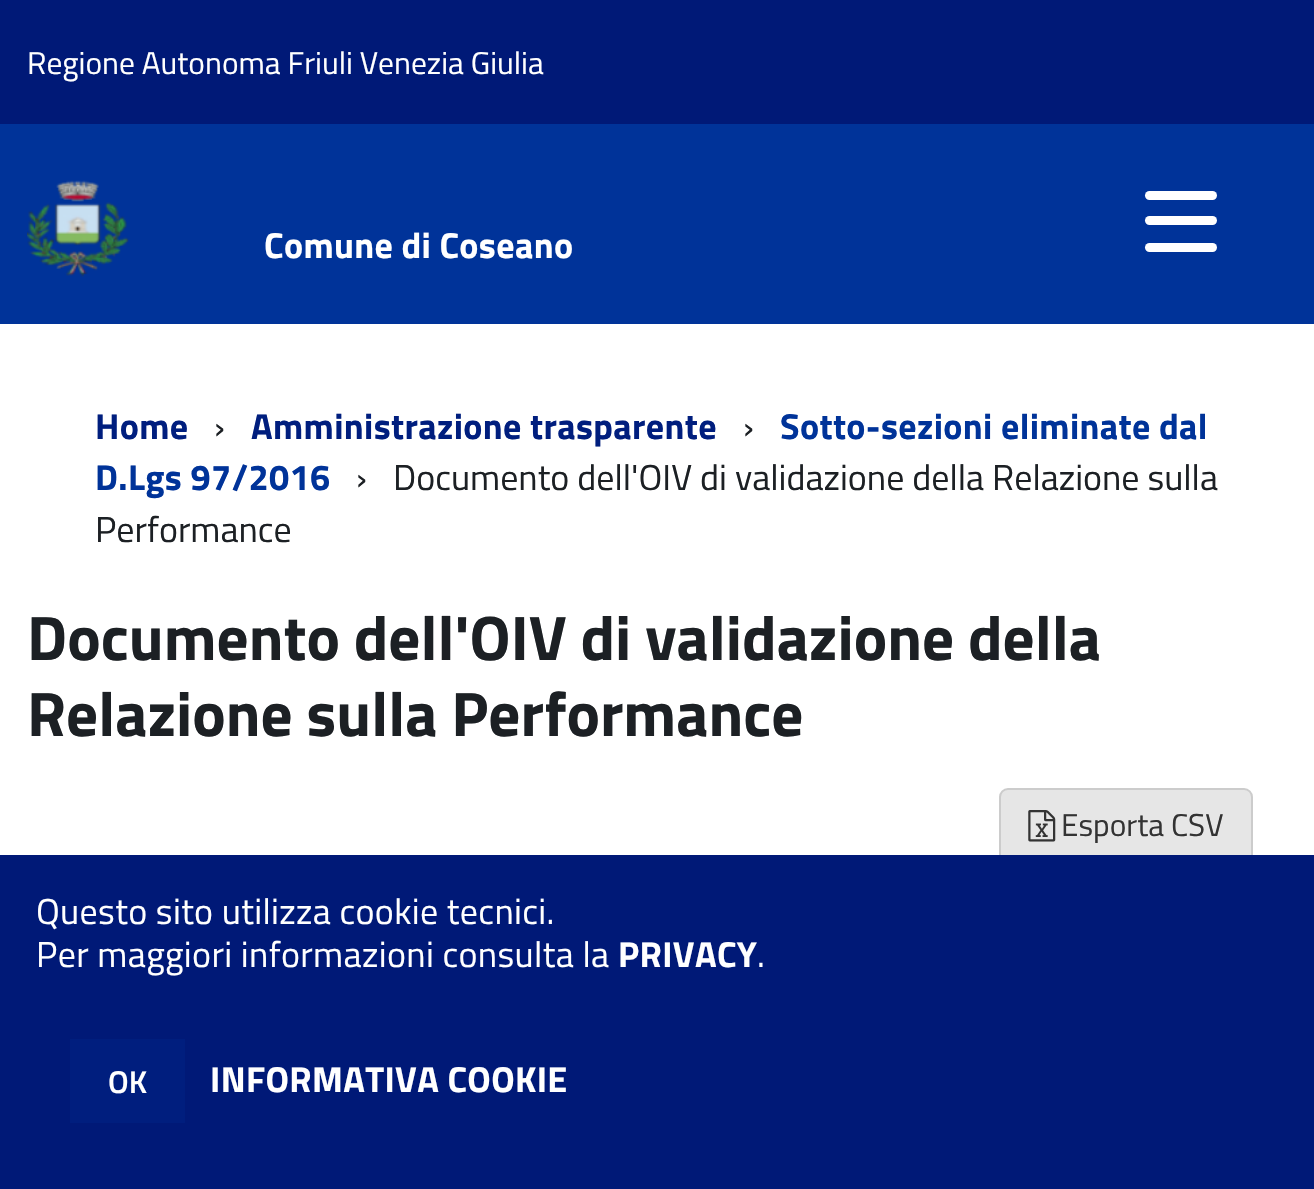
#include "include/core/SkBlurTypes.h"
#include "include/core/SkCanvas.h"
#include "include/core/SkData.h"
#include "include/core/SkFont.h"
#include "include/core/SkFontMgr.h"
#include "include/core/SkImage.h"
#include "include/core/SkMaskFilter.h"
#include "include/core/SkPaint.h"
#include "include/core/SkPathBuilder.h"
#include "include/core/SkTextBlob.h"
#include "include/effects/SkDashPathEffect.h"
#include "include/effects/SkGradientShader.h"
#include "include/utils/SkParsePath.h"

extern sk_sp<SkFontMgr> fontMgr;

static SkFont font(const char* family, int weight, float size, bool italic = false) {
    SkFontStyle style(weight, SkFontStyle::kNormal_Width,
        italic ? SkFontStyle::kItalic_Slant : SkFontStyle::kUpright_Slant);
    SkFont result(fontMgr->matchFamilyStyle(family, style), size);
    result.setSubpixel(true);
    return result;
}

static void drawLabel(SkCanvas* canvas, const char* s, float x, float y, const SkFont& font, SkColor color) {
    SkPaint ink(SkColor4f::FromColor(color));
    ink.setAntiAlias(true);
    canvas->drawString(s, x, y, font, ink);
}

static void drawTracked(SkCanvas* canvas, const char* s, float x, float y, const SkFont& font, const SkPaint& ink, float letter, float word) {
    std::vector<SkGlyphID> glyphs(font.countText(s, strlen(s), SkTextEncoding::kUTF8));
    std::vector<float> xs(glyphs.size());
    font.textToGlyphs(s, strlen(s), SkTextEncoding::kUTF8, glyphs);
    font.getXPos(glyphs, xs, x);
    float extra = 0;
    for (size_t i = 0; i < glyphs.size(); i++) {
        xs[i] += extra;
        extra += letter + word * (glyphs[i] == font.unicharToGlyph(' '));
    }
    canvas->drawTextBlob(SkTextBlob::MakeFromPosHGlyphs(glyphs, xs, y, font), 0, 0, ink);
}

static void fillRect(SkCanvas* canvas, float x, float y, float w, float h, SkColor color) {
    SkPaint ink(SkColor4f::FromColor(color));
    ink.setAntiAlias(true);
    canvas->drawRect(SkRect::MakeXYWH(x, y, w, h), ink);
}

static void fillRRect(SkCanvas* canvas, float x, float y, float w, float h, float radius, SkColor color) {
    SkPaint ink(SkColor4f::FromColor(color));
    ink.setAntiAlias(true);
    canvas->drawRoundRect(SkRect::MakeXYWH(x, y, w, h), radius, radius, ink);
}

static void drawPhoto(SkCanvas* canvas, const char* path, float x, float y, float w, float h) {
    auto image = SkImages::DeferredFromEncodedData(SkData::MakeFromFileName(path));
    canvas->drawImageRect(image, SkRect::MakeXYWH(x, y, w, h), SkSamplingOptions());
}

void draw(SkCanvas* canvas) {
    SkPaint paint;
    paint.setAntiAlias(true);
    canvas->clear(0xFFFFFFFF);
    fillRect(canvas, 0, 0, 1314, 124, 0xFF001977);
    SkFont font1 = font("Titillium Web", 400, 31.5f);
    drawLabel(canvas, "Regione Autonoma Friuli Venezia Giulia", 27, 74, font1, 0xFFFFFFFF);
    fillRect(canvas, 0, 124, 1314, 200, 0xFF003399);
    drawPhoto(canvas, "assets/img1.png", 27, 180, 102, 97);
    SkFont font2 = font("Titillium Web", 700, 36);
    paint.setColor(0xFFFFFFFF);
    drawTracked(canvas, "Comune di Coseano", 264, 258, font2, paint, 0.35f, 0);
    fillRRect(canvas, 1145, 216, 72, 9, 4.5f, 0xFFFFFFFF);
    fillRRect(canvas, 1145, 191, 72, 9, 4.5f, 0xFFFFFFFF);
    fillRRect(canvas, 1145, 243, 72, 9, 4.5f, 0xFFFFFFFF);
    paint.setColor(0xFF001E7E);
    drawTracked(canvas, "Home", 95, 439, font2, paint, 0.35f, 0);
    SkFont font3 = font("Titillium Web", 400, 36);
    drawLabel(canvas, "›", 214, 439, font3, 0xFF1C2024);
    drawTracked(canvas, "Amministrazione trasparente", 251, 439, font2, paint, 0.35f, 0);
    drawLabel(canvas, "›", 743, 439, font3, 0xFF1C2024);
    paint.setColor(0xFF003399);
    drawTracked(canvas, "Sotto-sezioni eliminate dal", 780, 439, font2, paint, 0.35f, 0);
    drawTracked(canvas, "D.Lgs 97/2016", 95, 490, font2, paint, 0.35f, 0);
    drawLabel(canvas, "›", 356, 490, font3, 0xFF1C2024);
    drawLabel(canvas, "Documento dell'OIV di validazione della Relazione sulla", 393, 490, font3, 0xFF1C2024);
    drawLabel(canvas, "Performance", 95, 542, font3, 0xFF1C2024);
    SkFont font4 = font("Titillium Web", 700, 63);
    drawLabel(canvas, "Documento dell'OIV di validazione della", 27, 660, font4, 0xFF1C2024);
    drawLabel(canvas, "Relazione sulla Performance", 27, 736, font4, 0xFF1C2024);
    paint.setColor(0xFFE6E6E6);
    canvas->drawRoundRect(SkRect::MakeXYWH(1000, 789, 252, 74), 8, 8, paint);
    paint.setStroke(true);
    paint.setStrokeWidth(2);
    paint.setColor(0xFFCCCCCC);
    canvas->drawRoundRect(SkRect::MakeXYWH(1000, 789, 252, 74), 8, 8, paint);
    drawPhoto(canvas, "assets/img2.png", 1028, 810, 28, 32);
    drawLabel(canvas, "Esporta CSV", 1061, 836, font1, 0xFF333333);
    fillRect(canvas, 0, 855, 1314, 334, 0xFF001977);
    paint.setStroke(false);
    paint.setColor(0xFFFFFFFF);
    drawTracked(canvas, "Questo sito utilizza cookie tecnici.", 36, 924, font3, paint, 0.35f, 0);
    drawTracked(canvas, "Per maggiori informazioni consulta la", 36, 967, font3, paint, 0.35f, 0);
    drawTracked(canvas, "PRIVACY", 618, 967, font2, paint, 0.35f, 0);
    drawTracked(canvas, ".", 757, 967, font3, paint, 0.35f, 0);
    fillRect(canvas, 70, 1039, 115, 84, 0xFF001E7E);
    SkFont font5 = font("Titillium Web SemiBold", 600, 31.5f);
    drawLabel(canvas, "OK", 108, 1093, font5, 0xFFFFFFFF);
    drawTracked(canvas, "INFORMATIVA COOKIE", 210, 1092, font2, paint, 0.35f, 0);
}
